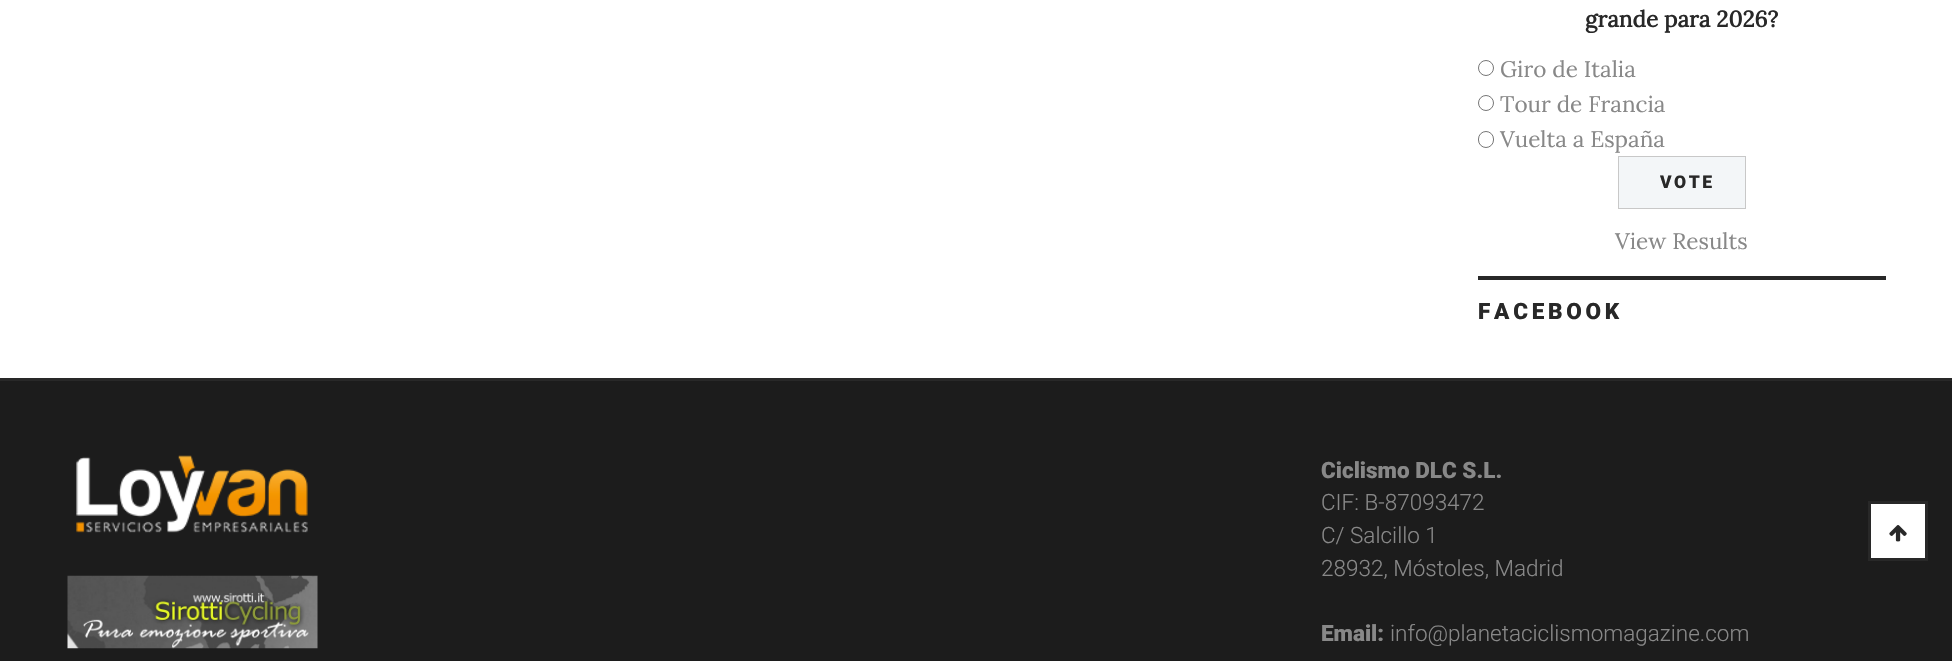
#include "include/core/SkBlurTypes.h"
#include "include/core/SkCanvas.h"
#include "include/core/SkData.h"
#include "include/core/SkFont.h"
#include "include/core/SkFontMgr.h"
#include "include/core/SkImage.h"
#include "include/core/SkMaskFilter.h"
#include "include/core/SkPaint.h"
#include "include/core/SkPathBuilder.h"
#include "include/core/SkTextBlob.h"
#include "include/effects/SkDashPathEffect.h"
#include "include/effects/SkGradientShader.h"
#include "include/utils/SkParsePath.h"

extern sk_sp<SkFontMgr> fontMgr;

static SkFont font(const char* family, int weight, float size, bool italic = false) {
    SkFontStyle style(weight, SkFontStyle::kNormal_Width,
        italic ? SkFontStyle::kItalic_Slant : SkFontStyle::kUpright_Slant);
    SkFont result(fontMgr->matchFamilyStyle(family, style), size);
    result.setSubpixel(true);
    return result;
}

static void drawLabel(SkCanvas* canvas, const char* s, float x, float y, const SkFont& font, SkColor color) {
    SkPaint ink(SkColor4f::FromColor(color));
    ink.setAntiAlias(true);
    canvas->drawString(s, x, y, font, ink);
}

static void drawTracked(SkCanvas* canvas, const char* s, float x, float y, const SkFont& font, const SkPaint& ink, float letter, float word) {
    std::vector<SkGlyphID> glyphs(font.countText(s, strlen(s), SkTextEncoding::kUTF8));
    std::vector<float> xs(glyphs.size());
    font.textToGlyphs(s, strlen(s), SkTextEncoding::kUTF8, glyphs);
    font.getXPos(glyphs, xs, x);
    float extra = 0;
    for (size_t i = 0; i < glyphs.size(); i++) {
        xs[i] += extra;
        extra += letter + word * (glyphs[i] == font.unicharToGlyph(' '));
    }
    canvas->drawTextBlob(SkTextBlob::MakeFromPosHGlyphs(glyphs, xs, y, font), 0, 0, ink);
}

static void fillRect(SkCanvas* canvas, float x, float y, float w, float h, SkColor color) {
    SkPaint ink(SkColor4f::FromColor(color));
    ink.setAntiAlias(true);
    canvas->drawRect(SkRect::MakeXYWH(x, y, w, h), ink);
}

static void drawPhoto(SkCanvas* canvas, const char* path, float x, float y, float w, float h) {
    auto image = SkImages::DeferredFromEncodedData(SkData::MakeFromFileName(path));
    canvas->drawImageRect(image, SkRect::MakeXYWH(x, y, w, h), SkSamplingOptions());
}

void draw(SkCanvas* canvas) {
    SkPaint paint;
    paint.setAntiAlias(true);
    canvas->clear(0xFFFFFFFF);
    SkFont font1 = font("Lora", 700, 22.5f);
    drawLabel(canvas, "grande para 2026?", 1585, 27, font1, 0xFF282828);
    paint.setStroke(true);
    paint.setStrokeWidth(1);
    paint.setColor(0xFF767676);
    canvas->drawCircle(1486, 68, 7.5f, paint);
    SkFont font2 = font("Lora", 400, 22.5f);
    drawLabel(canvas, "Giro de Italia", 1500, 77, font2, 0xFF888888);
    canvas->drawCircle(1486, 103, 7.5f, paint);
    drawLabel(canvas, "Tour de Francia", 1500, 112, font2, 0xFF888888);
    canvas->drawRoundRect(SkRect::MakeXYWH(1478.5f, 131.5f, 15, 16), 7.5f, 7.5f, paint);
    drawLabel(canvas, "Vuelta a España", 1500, 147, font2, 0xFF888888);
    paint.setStroke(false);
    paint.setColor(0xFFF3F6F8);
    canvas->drawRect(SkRect::MakeXYWH(1618.5f, 156.5f, 127, 52), paint);
    paint.setStroke(true);
    paint.setColor(0xFFC8C8C8);
    canvas->drawRect(SkRect::MakeXYWH(1618.5f, 156.5f, 127, 52), paint);
    SkFont font3 = font("Roboto", 900, 17.5f);
    paint.setStroke(false);
    paint.setColor(0xFF282828);
    drawTracked(canvas, "VOTE", 1660, 188, font3, paint, 2.5f, 0);
    drawLabel(canvas, "View Results", 1615, 249, font2, 0xFF888888);
    fillRect(canvas, 1478, 276, 408, 4, 0xFF282828);
    SkFont font4 = font("Roboto", 900, 22.5f);
    drawTracked(canvas, "FACEBOOK", 1478, 319, font4, paint, 3.75f, 0);
    fillRect(canvas, 0, 381, 1952, 280, 0xFF1C1C1C);
    fillRect(canvas, 0, 378, 1952, 3, 0xFF282828);
    drawPhoto(canvas, "assets/img1.png", 76, 455, 232, 78);
    drawPhoto(canvas, "assets/img2.png", 67, 575, 251, 74);
    drawLabel(canvas, "Ciclismo DLC S.L.", 1321, 478, font4, 0xFF888888);
    SkFont font5 = font("Roboto", 300, 22.5f);
    drawLabel(canvas, "CIF: B-87093472", 1321, 510, font5, 0xFF888888);
    drawLabel(canvas, "C/ Salcillo 1", 1321, 543, font5, 0xFF888888);
    drawLabel(canvas, "28932, Móstoles, Madrid", 1321, 576, font5, 0xFF888888);
    drawLabel(canvas, "Email:", 1321, 641, font4, 0xFF888888);
    drawLabel(canvas, "info@planetaciclismomagazine.com", 1390, 641, font5, 0xFF888888);
    paint.setColor(0xFFFFFFFF);
    canvas->drawRect(SkRect::MakeXYWH(1869.5f, 502.5f, 57, 57), paint);
    paint.setStroke(true);
    paint.setStrokeWidth(3);
    paint.setColor(0xFF282828);
    canvas->drawRect(SkRect::MakeXYWH(1869.5f, 502.5f, 57, 57), paint);
    drawPhoto(canvas, "assets/img3.png", 1889, 525, 18, 17);
}
